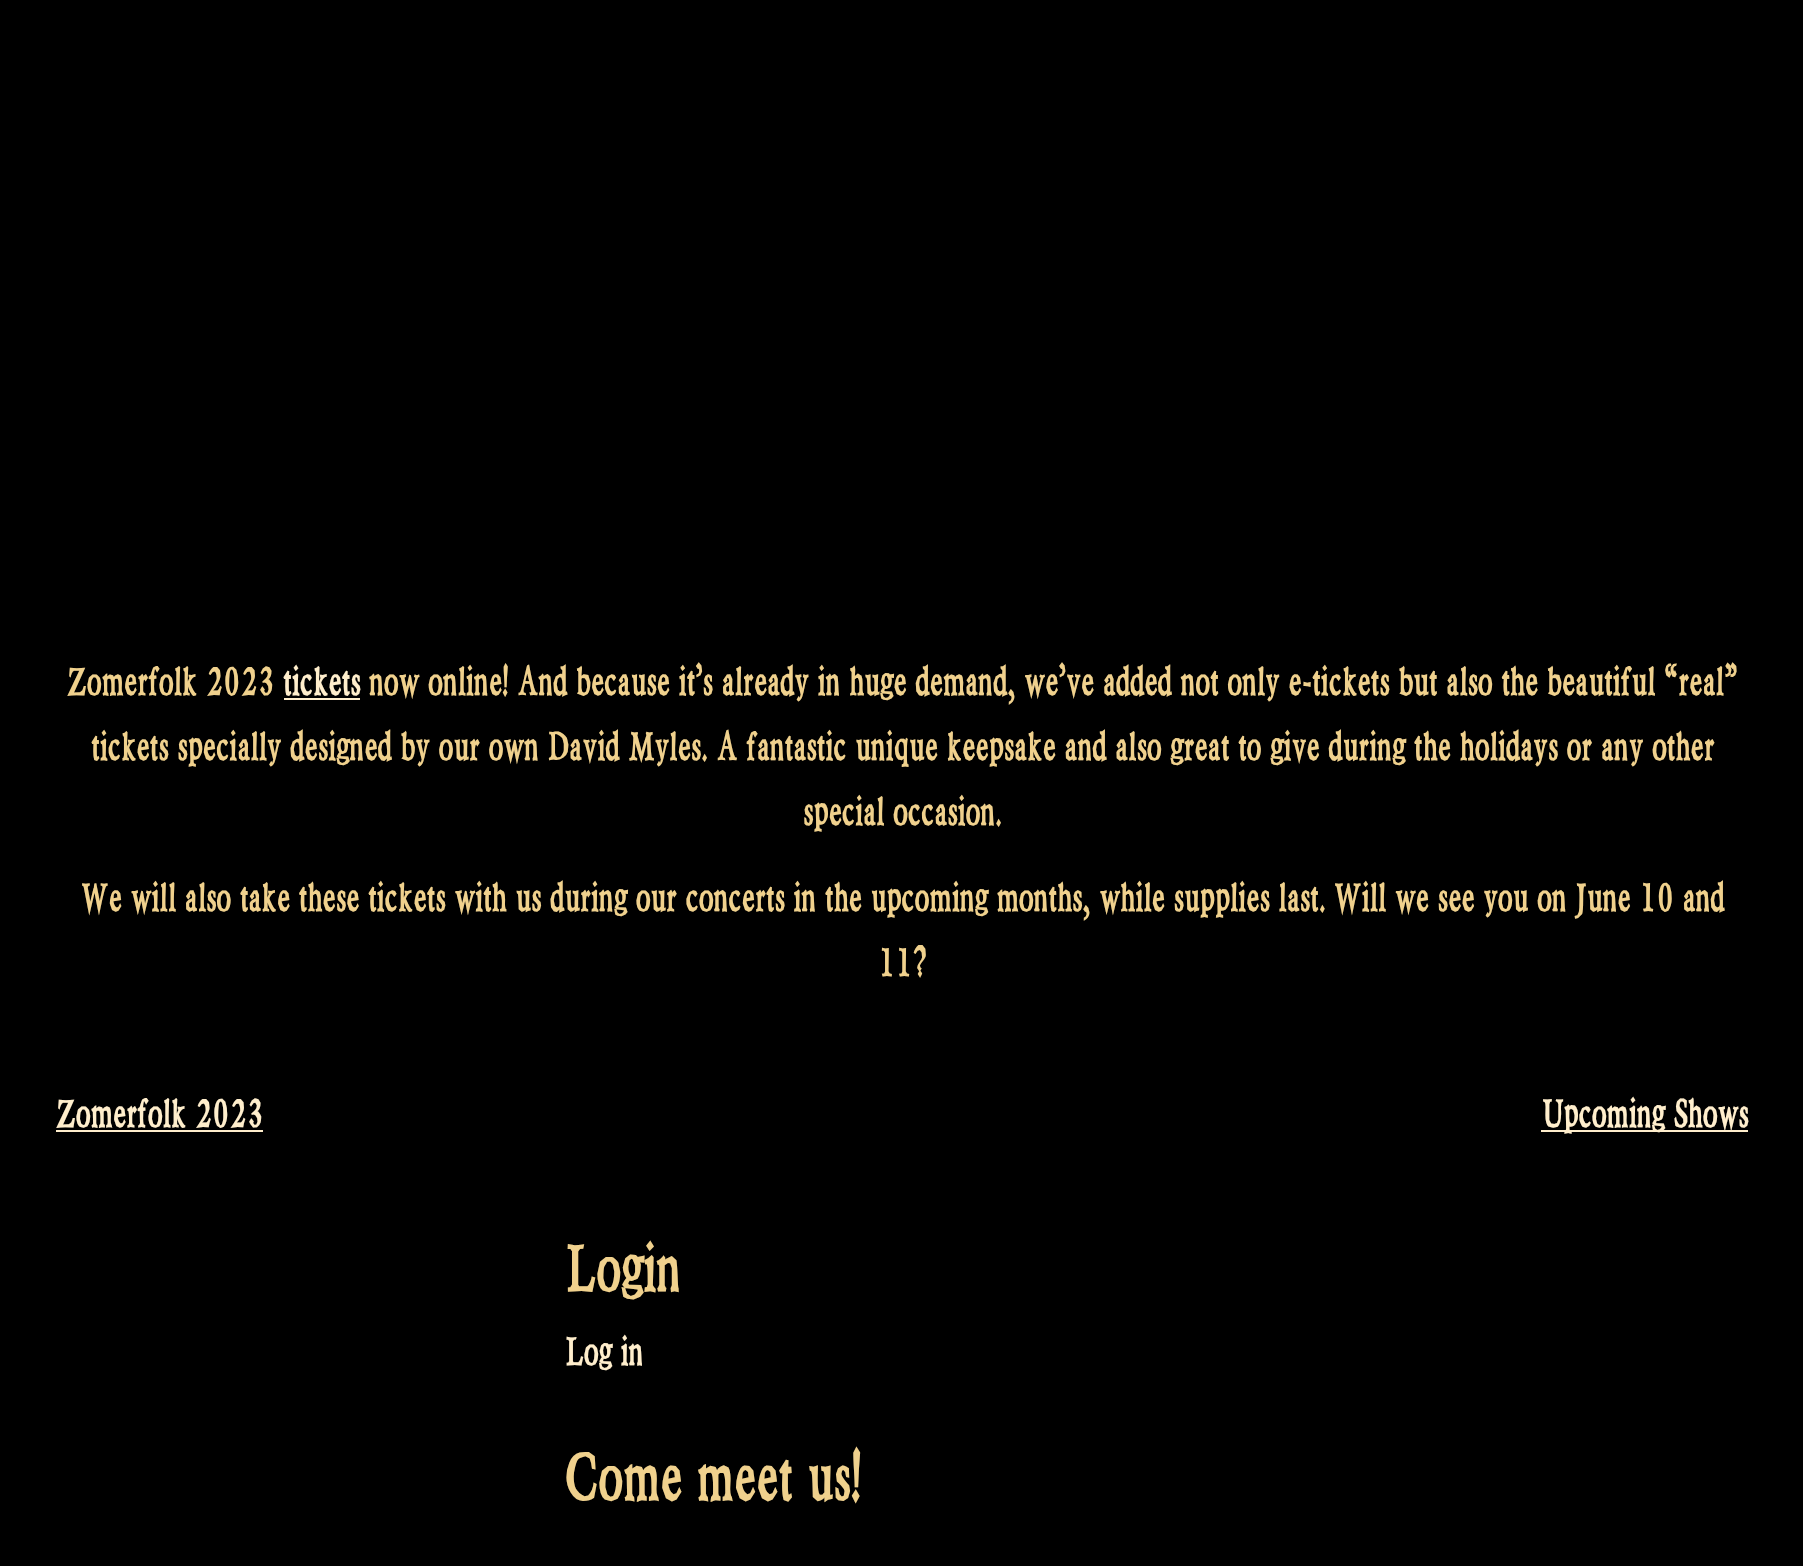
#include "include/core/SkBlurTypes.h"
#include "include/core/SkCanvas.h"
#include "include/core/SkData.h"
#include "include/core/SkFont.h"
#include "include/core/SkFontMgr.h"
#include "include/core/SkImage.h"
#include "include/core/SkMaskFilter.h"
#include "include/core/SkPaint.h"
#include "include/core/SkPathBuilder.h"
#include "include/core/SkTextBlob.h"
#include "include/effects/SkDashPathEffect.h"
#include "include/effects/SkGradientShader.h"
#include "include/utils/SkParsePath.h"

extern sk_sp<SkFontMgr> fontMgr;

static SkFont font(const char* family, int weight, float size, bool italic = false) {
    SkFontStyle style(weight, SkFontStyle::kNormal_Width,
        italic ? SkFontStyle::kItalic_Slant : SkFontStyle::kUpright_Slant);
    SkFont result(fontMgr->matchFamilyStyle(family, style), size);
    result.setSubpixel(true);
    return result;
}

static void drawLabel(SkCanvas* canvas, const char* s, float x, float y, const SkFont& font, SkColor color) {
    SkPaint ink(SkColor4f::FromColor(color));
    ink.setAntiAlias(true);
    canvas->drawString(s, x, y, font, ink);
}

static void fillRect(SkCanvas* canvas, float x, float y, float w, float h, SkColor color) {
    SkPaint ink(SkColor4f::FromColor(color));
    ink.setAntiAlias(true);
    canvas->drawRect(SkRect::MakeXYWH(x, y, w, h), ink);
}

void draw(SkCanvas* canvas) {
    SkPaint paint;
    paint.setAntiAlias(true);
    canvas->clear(0xFF000000);
    SkFont font1 = font("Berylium", 400, 43.2f);
    drawLabel(canvas, "Zomerfolk 2023", 67, 695, font1, 0xFFF0D18D);
    drawLabel(canvas, "tickets", 283, 695, font1, 0xFFFFEECC);
    fillRect(canvas, 284, 698, 76, 2, 0xFFFFEECC);
    drawLabel(canvas, "now online! And because it’s already in huge demand, we’ve added not only e-tickets but also the beautiful “real”", 369, 695, font1, 0xFFF0D18D);
    drawLabel(canvas, "tickets specially designed by our own David Myles. A fantastic unique keepsake and also great to give during the holidays or any other", 91, 760, font1, 0xFFF0D18D);
    drawLabel(canvas, "special occasion.", 803, 825, font1, 0xFFF0D18D);
    drawLabel(canvas, "We will also take these tickets with us during our concerts in the upcoming months, while supplies last. Will we see you on June 10 and", 81, 911, font1, 0xFFF0D18D);
    drawLabel(canvas, "11?", 878, 976, font1, 0xFFF0D18D);
    drawLabel(canvas, "Zomerfolk 2023", 56, 1127, font1, 0xFFFFEECC);
    fillRect(canvas, 56, 1130, 207, 2, 0xFFFFEECC);
    fillRect(canvas, 1541, 1130, 207, 2, 0xFFFFEECC);
    drawLabel(canvas, "Upcoming Shows", 1542, 1127, font1, 0xFFFFEECC);
    SkFont font2 = font("Berylium", 400, 72);
    drawLabel(canvas, "Login", 565, 1291, font2, 0xFFF0D18D);
    drawLabel(canvas, "Log in", 565, 1365, font1, 0xFFFFEECC);
    drawLabel(canvas, "Come meet us!", 565, 1500, font2, 0xFFF0D18D);
}
